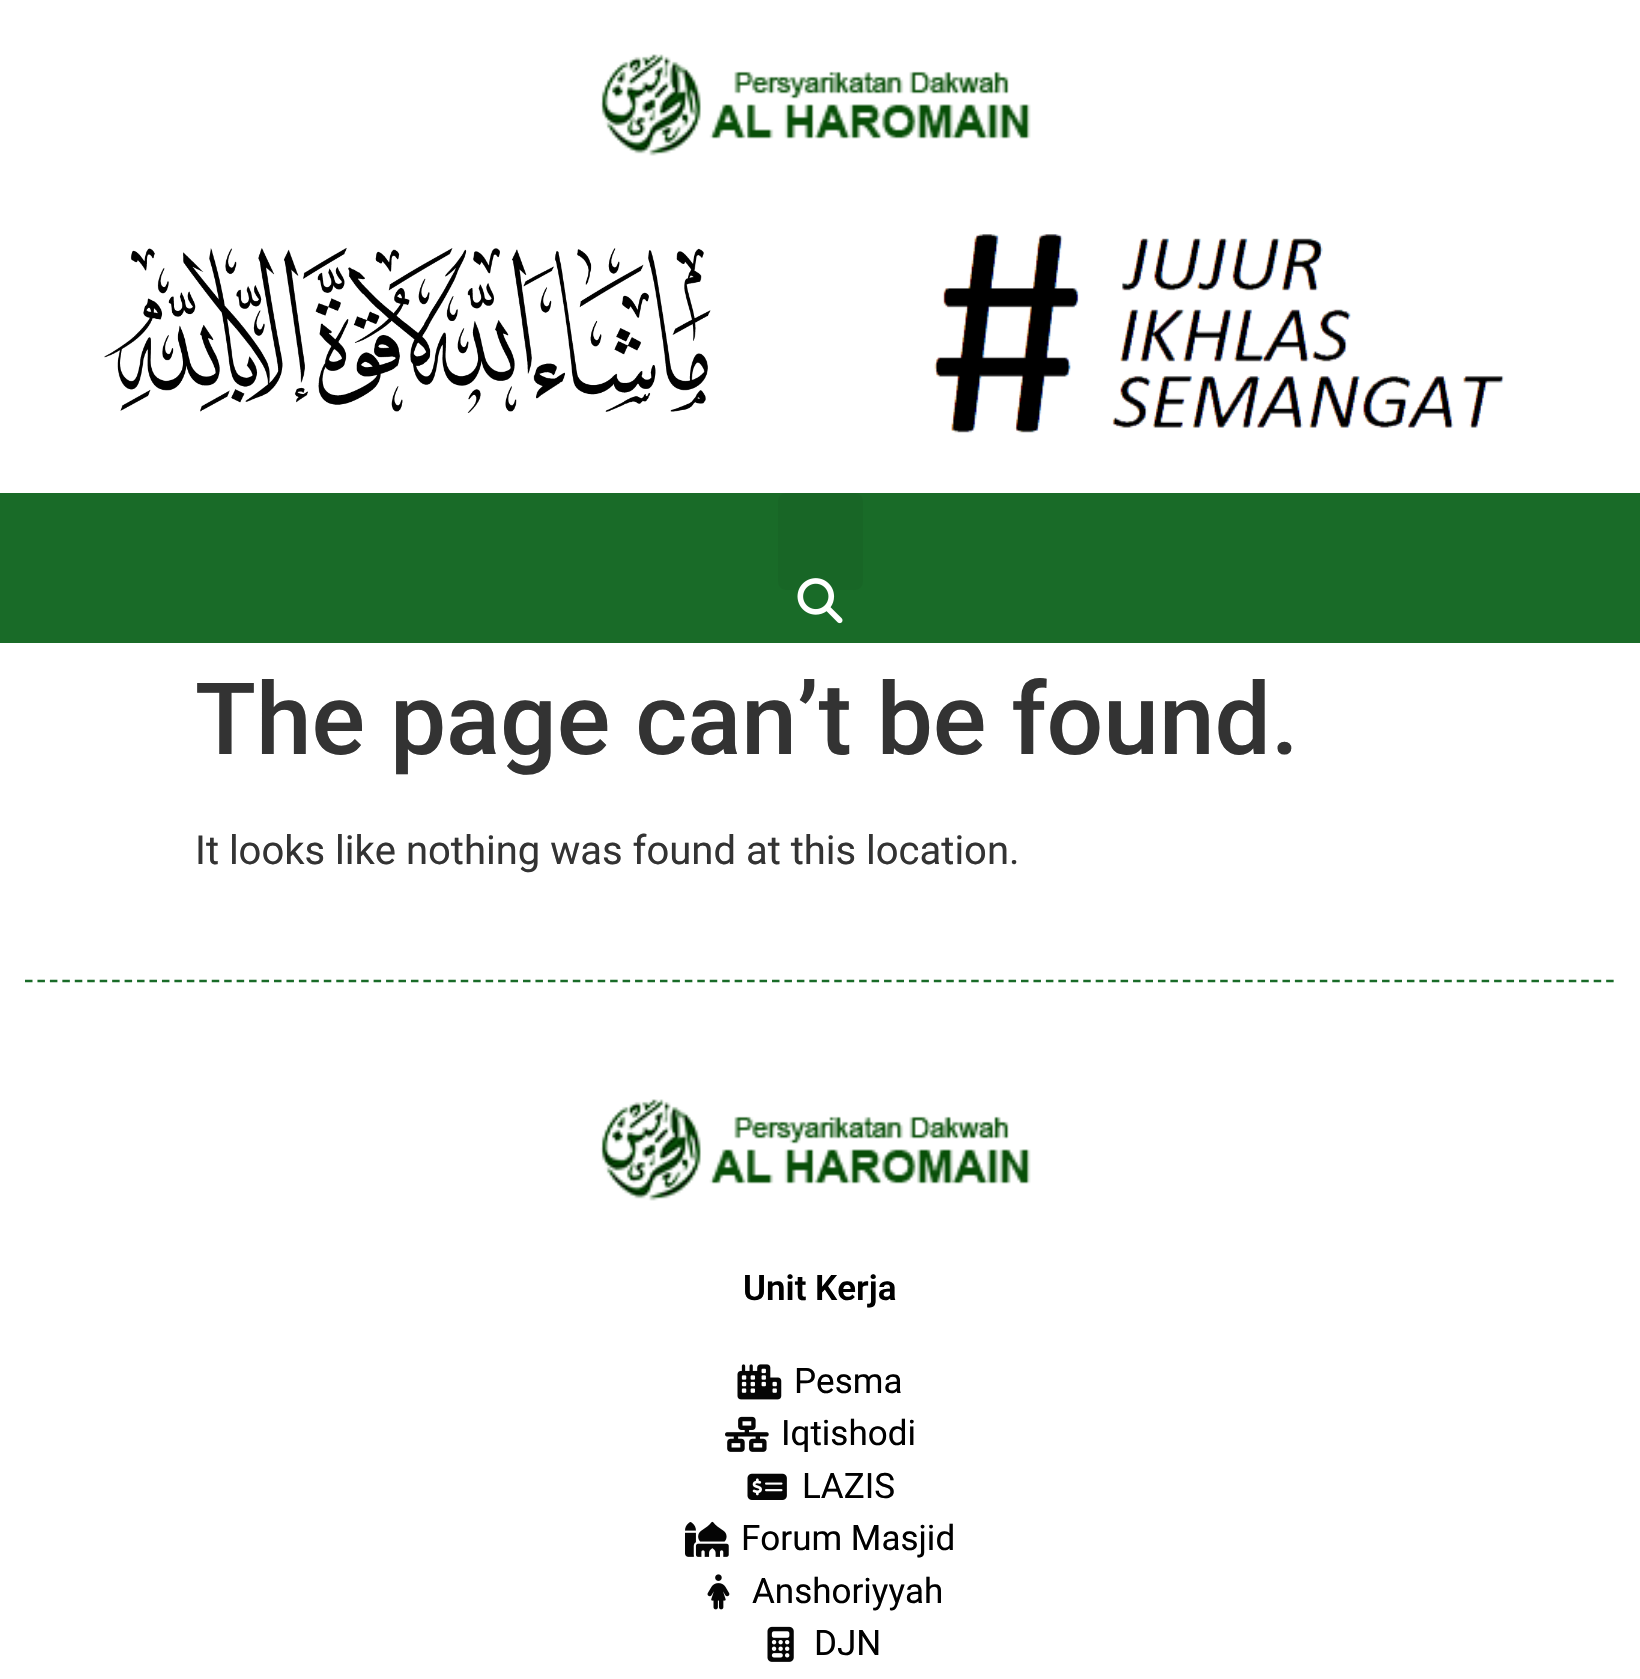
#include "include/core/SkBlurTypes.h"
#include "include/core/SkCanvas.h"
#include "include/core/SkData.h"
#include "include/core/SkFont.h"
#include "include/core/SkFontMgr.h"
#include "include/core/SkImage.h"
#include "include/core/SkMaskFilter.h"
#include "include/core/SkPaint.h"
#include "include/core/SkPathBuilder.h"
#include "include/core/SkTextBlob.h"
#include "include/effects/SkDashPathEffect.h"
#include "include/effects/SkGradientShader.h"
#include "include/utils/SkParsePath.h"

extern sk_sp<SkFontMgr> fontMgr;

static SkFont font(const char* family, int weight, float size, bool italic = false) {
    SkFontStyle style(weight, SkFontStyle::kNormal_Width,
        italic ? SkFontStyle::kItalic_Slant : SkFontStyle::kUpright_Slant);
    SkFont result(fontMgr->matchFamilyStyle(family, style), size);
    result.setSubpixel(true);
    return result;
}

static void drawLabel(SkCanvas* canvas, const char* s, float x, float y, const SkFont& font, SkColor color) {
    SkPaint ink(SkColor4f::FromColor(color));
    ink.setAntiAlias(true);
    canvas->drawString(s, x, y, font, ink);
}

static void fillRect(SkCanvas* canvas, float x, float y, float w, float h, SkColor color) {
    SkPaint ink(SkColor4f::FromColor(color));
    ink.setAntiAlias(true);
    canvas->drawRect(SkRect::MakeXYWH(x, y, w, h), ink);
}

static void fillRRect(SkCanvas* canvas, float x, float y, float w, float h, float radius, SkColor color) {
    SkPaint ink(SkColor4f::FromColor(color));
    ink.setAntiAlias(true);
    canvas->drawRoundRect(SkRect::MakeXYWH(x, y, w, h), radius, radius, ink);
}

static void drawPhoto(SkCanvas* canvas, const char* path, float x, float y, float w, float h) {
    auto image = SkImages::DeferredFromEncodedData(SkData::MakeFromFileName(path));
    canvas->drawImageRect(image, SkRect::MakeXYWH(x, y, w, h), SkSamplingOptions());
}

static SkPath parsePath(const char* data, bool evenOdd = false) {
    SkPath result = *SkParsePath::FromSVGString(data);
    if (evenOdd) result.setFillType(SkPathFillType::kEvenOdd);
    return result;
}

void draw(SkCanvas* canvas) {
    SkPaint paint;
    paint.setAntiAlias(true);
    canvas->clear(0xFFFFFFFF);
    drawPhoto(canvas, "assets/img1.png", 600, 54, 431, 102);
    drawPhoto(canvas, "assets/img2.png", 104, 247, 607, 166);
    drawPhoto(canvas, "assets/img3.png", 934, 234, 570, 199);
    fillRect(canvas, 0, 493, 1640, 150, 0xFF196B28);
    fillRRect(canvas, 778, 493, 85, 97, 8, 0xFF186626);
    drawPhoto(canvas, "assets/img4.png", 797, 578, 46, 46);
    SkFont font1 = font("Roboto", 500, 100);
    drawLabel(canvas, "The page can’t be found.", 195, 754, font1, 0xFF333333);
    SkFont font2 = font("Roboto", 400, 40);
    drawLabel(canvas, "It looks like nothing was found at this location.", 195, 864, font2, 0xFF333333);
    paint.setStroke(true);
    paint.setStrokeWidth(2.5f);
    paint.setColor(0xFF196B28);
    paint.setPathEffect(SkDashPathEffect::Make({{7.5f, 4.95f}}, 0));
    canvas->drawPath(parsePath("M25 981H1615"), paint);
    paint.setPathEffect(nullptr);
    drawPhoto(canvas, "assets/img1.png", 600, 1099, 431, 102);
    SkFont font3 = font("Roboto", 600, 35);
    drawLabel(canvas, "Unit Kerja", 743, 1300, font3, 0xFF000000);
    drawPhoto(canvas, "assets/img5.png", 737, 1364, 45, 36);
    SkFont font4 = font("Roboto", 400, 35);
    drawLabel(canvas, "Pesma", 794, 1393, font4, 0xFF000000);
    drawPhoto(canvas, "assets/img6.png", 725, 1416, 44, 36);
    drawLabel(canvas, "Iqtishodi", 781, 1445, font4, 0xFF000000);
    drawPhoto(canvas, "assets/img7.png", 747, 1473, 40, 27);
    drawLabel(canvas, "LAZIS", 802, 1498, font4, 0xFF000000);
    drawPhoto(canvas, "assets/img8.png", 685, 1521, 44, 36);
    drawLabel(canvas, "Forum Masjid", 741, 1550, font4, 0xFF000000);
    drawPhoto(canvas, "assets/img9.png", 707, 1574, 23, 36);
    drawLabel(canvas, "Anshoriyyah", 752, 1603, font4, 0xFF000000);
    drawPhoto(canvas, "assets/img10.png", 767, 1626, 27, 36);
    drawLabel(canvas, "DJN", 814, 1655, font4, 0xFF000000);
}
